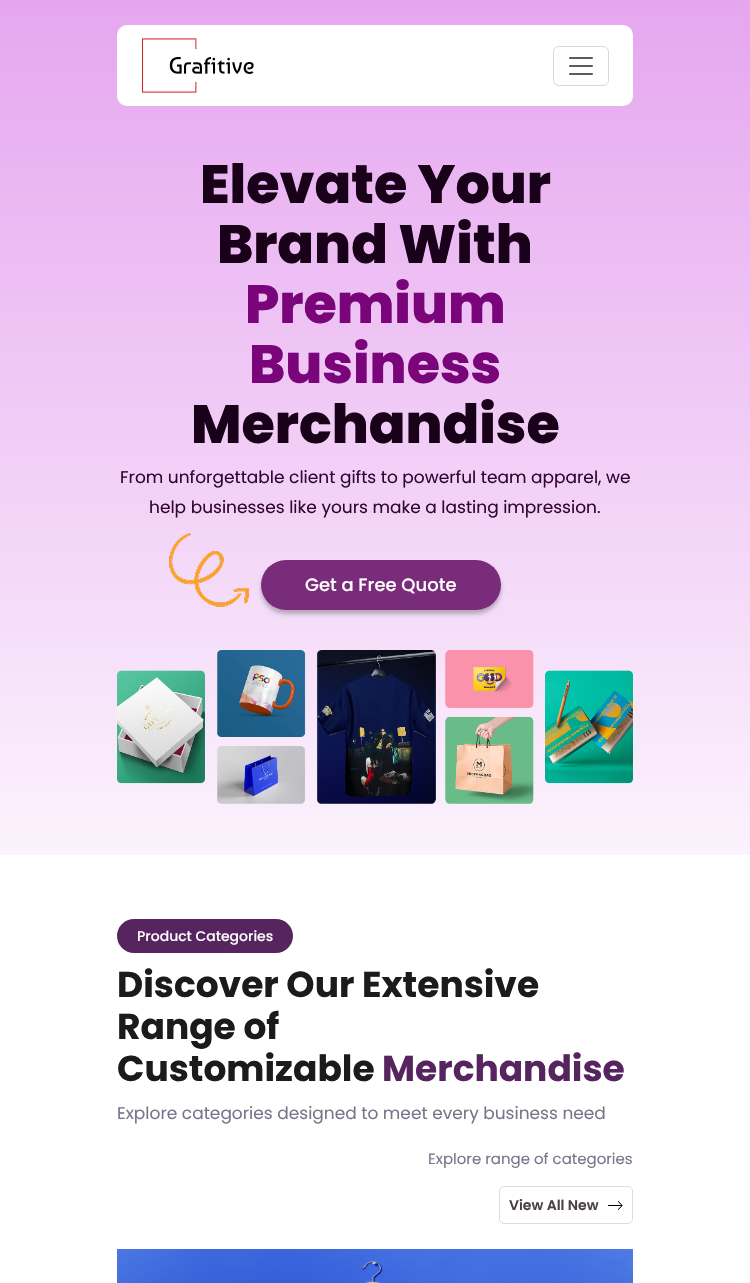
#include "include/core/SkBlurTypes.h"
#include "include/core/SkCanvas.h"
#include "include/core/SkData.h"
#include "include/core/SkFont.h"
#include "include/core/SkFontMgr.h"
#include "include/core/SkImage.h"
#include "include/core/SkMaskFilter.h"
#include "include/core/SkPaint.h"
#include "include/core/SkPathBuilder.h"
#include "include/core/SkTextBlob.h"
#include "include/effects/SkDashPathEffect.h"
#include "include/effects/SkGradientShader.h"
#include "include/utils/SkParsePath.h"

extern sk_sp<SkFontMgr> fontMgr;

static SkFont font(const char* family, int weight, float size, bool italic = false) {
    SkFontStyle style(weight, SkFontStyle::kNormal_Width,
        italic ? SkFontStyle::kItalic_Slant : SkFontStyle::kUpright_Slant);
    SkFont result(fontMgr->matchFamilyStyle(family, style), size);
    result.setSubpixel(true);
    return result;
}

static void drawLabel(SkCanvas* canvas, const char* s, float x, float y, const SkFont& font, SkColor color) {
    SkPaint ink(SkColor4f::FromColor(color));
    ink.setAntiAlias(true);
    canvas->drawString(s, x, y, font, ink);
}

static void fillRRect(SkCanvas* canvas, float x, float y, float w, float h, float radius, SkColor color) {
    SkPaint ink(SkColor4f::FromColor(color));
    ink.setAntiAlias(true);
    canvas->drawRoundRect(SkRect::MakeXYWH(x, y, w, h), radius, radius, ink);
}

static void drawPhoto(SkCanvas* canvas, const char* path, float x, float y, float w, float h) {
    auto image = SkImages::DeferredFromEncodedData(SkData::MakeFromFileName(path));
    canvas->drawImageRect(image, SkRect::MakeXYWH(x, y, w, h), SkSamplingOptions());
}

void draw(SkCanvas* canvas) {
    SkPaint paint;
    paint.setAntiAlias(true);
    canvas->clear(0xFFFFFFFF);
    {
        const SkColor colors[] = {0xFFFFFFFF, 0xFFDF8FEB};
        const float stops[] = {0, 1};
        const SkPoint ends[] = {{375, 992}, {375, -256}};
        paint.setShader(SkGradientShader::MakeLinear(ends, colors, stops, 2, SkTileMode::kClamp));
        paint.setAlpha(255);
    }
    canvas->drawRect(SkRect::MakeXYWH(0, 0, 750, 855), paint);
    fillRRect(canvas, 117, 25, 516, 81, 10, 0xFFFFFFFF);
    drawPhoto(canvas, "assets/img1.png", 142, 38, 112, 55);
    paint.setStroke(true);
    paint.setStrokeWidth(1);
    paint.setShader(nullptr);
    paint.setColor(0xFFD9D9D9);
    canvas->drawRoundRect(SkRect::MakeXYWH(553.5f, 46.5f, 55, 39), 5.5f, 5.5f, paint);
    drawPhoto(canvas, "assets/img2.png", 569, 57, 24, 18);
    SkFont font1 = font("Poppins", 800, 54);
    drawLabel(canvas, "Elevate Your", 200, 203, font1, 0xFF190219);
    drawLabel(canvas, "Brand With", 217, 263, font1, 0xFF190219);
    drawLabel(canvas, "Premium", 245, 323, font1, 0xFF7A047A);
    drawLabel(canvas, "Business", 249, 383, font1, 0xFF7A047A);
    drawLabel(canvas, "Merchandise", 191, 443, font1, 0xFF190219);
    SkFont font2 = font("Poppins", 400, 17);
    drawLabel(canvas, "From unforgettable client gifts to powerful team apparel, we", 120, 483, font2, 0xFF300530);
    drawLabel(canvas, "help businesses like yours make a lasting impression.", 149, 513, font2, 0xFF300530);
    drawPhoto(canvas, "assets/img3.png", 169, 533, 80, 74);
    paint.setStroke(false);
    paint.setColor(0x40000000);
    paint.setMaskFilter(SkMaskFilter::MakeBlur(kNormal_SkBlurStyle, 2));
    canvas->drawRoundRect(SkRect::MakeXYWH(261, 564, 240, 50), 25, 25, paint);
    paint.setMaskFilter(nullptr);
    fillRRect(canvas, 261, 560, 240, 50, 25, 0xFF792C79);
    SkFont font3 = font("Poppins", 500, 18);
    drawLabel(canvas, "Get a Free Quote", 305, 591, font3, 0xFFFFFFFF);
    drawPhoto(canvas, "assets/img4.png", 117, 650, 516, 154);
    fillRRect(canvas, 117, 919, 176, 34, 17, 0xFF56245E);
    SkFont font4 = font("Poppins", 500, 14);
    drawLabel(canvas, "Product Categories", 137, 941, font4, 0xFFFFFFFF);
    SkFont font5 = font("Poppins", 700, 36);
    drawLabel(canvas, "Discover Our Extensive", 117, 997, font5, 0xFF1B1B1B);
    drawLabel(canvas, "Range of", 117, 1039, font5, 0xFF1B1B1B);
    drawLabel(canvas, "Customizable", 117, 1081, font5, 0xFF1B1B1B);
    drawLabel(canvas, "Merchandise", 382, 1081, font5, 0xFF56245E);
    drawLabel(canvas, "Explore categories designed to meet every business need", 117, 1119, font2, 0xFF76758A);
    SkFont font6 = font("Poppins", 400, 15);
    drawLabel(canvas, "Explore range of categories", 428, 1164, font6, 0xFF76758A);
    paint.setStroke(true);
    paint.setColor(0xFFDCDCDC);
    canvas->drawRoundRect(SkRect::MakeXYWH(499.5f, 1186.5f, 133, 37), 4.5f, 4.5f, paint);
    SkFont font7 = font("Poppins", 600, 14);
    drawLabel(canvas, "View All New", 509, 1210, font7, 0xFF4D4242);
    drawPhoto(canvas, "assets/img5.png", 608, 1201, 15, 9);
    drawPhoto(canvas, "assets/img6.png", 117, 1249, 516, 34);
}
